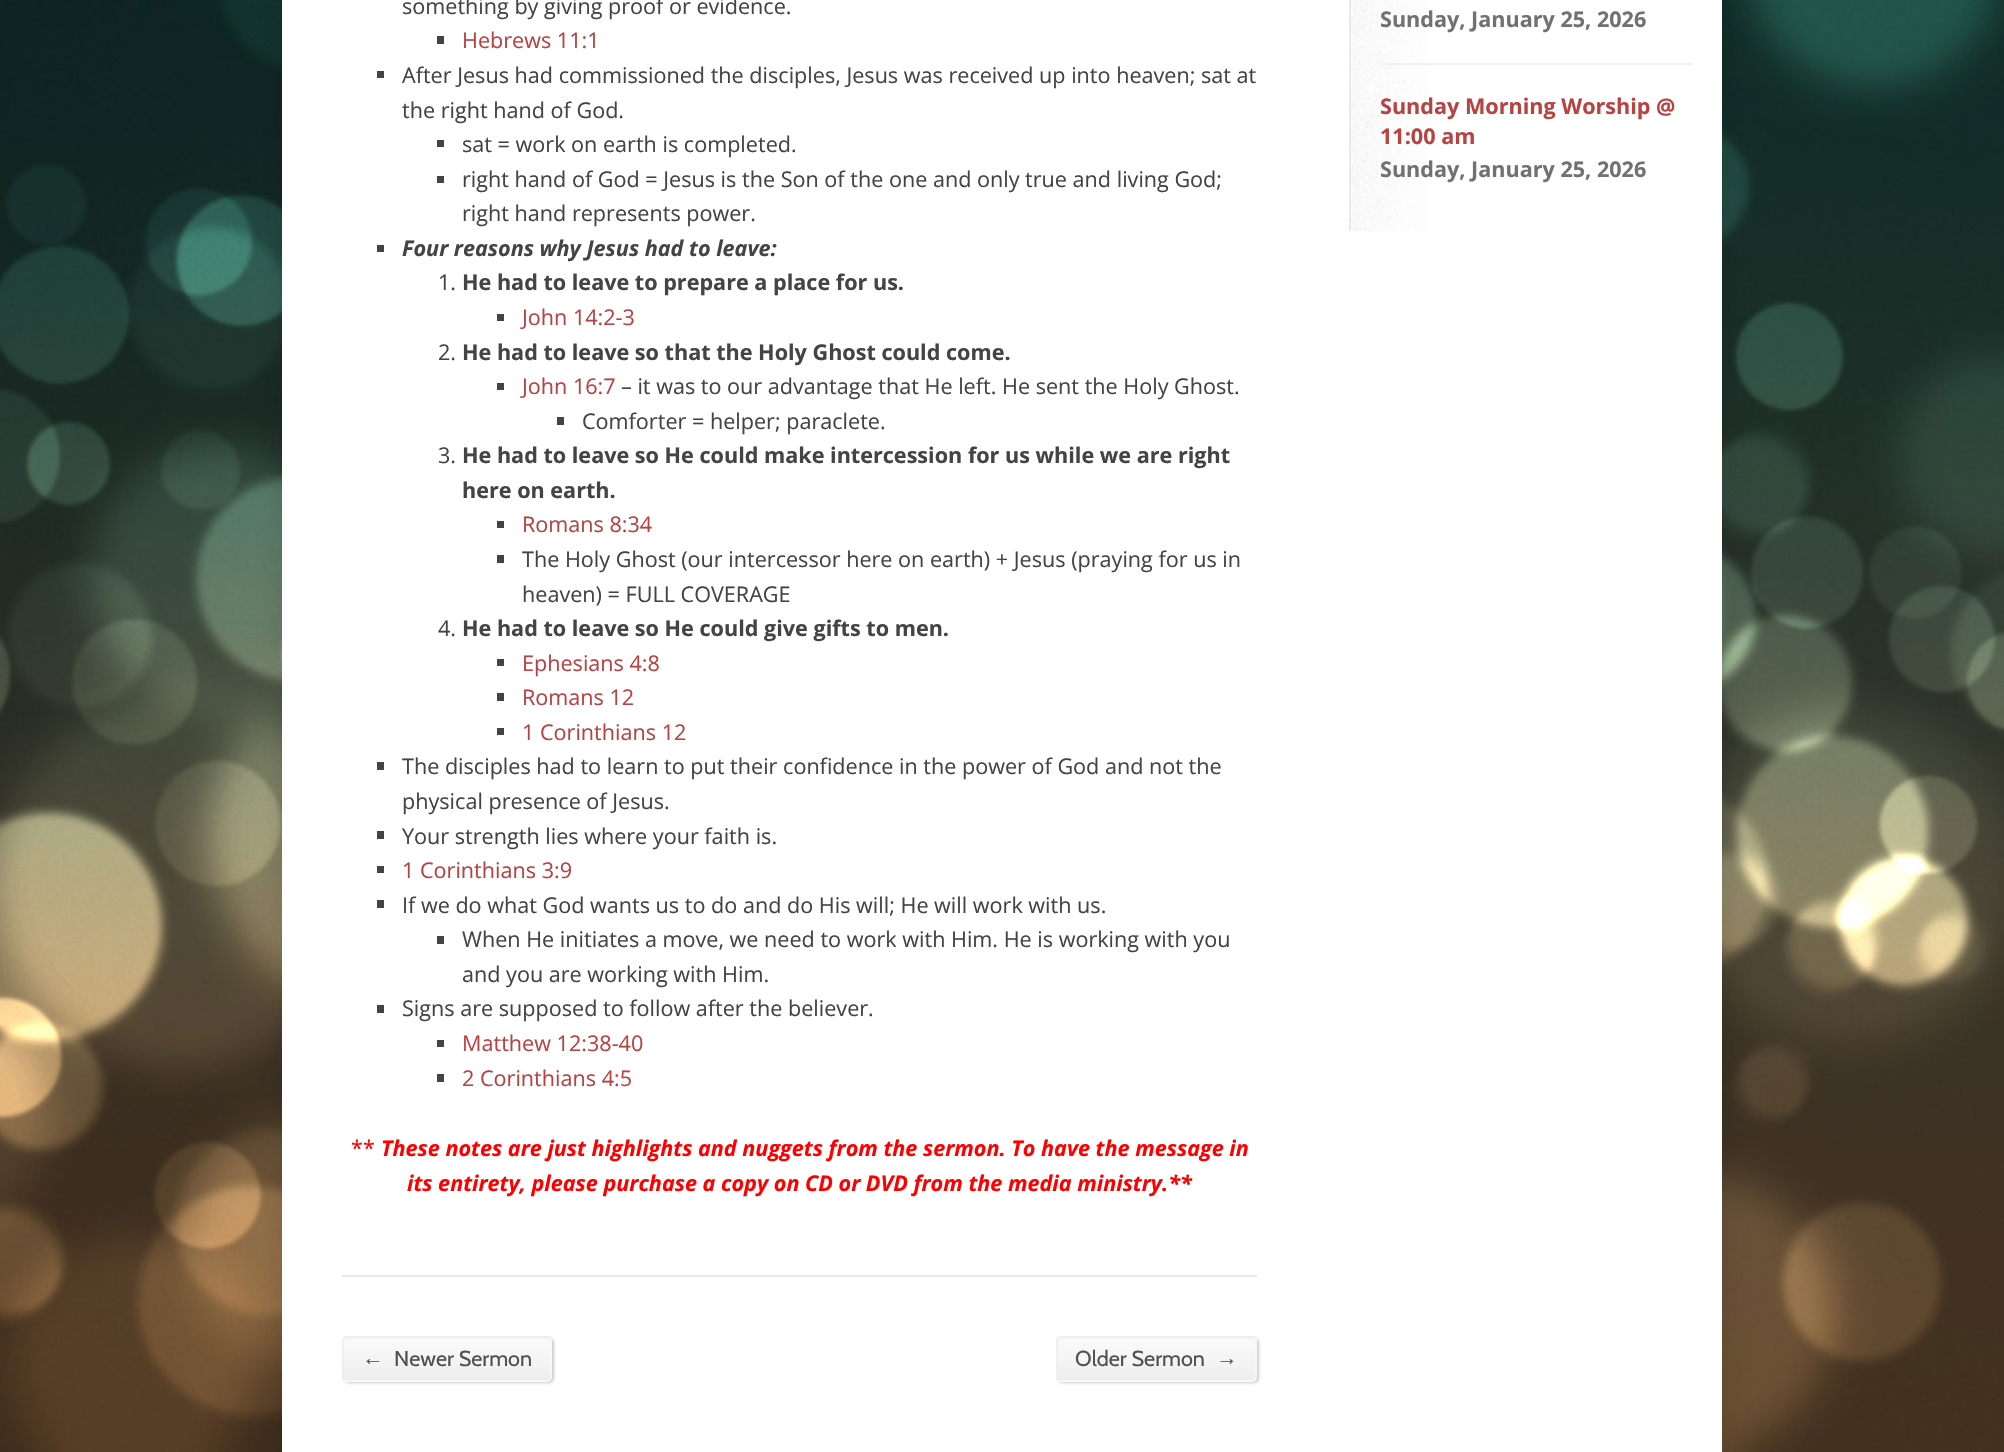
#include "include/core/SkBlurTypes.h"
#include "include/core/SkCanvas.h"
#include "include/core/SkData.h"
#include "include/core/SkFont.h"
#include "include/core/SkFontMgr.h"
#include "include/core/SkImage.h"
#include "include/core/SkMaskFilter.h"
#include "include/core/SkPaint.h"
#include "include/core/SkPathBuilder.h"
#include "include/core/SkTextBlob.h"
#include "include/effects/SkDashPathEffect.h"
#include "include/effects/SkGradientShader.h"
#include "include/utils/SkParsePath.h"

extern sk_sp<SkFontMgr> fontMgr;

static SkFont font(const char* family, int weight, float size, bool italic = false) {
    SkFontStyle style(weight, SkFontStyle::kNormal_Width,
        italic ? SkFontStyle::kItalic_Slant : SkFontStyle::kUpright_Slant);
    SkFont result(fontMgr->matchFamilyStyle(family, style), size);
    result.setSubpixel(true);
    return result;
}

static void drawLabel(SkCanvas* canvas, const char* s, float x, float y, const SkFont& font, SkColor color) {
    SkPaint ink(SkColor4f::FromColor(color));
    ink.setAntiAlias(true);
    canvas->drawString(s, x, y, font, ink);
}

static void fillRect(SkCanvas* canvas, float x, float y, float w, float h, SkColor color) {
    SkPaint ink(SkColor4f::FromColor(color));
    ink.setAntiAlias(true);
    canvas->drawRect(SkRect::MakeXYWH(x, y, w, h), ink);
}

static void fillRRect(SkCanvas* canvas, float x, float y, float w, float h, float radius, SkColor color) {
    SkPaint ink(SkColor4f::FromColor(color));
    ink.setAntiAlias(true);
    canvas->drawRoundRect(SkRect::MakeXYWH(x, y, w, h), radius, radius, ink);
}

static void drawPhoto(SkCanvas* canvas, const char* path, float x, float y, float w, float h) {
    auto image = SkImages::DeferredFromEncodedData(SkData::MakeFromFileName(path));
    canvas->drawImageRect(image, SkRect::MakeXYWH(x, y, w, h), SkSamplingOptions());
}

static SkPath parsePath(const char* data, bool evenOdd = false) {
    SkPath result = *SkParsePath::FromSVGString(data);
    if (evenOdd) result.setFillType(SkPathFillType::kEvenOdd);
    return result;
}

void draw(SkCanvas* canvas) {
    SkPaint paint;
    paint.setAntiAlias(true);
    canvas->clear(0xFFFFFFFF);
    drawPhoto(canvas, "assets/img1.png", 0, 0, 2004, 1452);
    paint.setColor(0x1F000000);
    paint.setMaskFilter(SkMaskFilter::MakeBlur(kNormal_SkBlurStyle, 15));
    canvas->drawRoundRect(SkRect::MakeXYWH(282, -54, 1440, 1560), 9, 9, paint);
    paint.setMaskFilter(nullptr);
    fillRect(canvas, 282, 0, 1440, 1452, 0xFFFFFFFF);
    SkFont font1 = font("Open Sans", 400, 21.6f);
    drawLabel(canvas, "something by giving proof or evidence.", 402, 14, font1, 0xFF444444);
    fillRect(canvas, 437, 36, 7, 8, 0xFF444444);
    drawLabel(canvas, "Hebrews 11:1", 462, 48, font1, 0xFFB74343);
    fillRect(canvas, 377, 71, 7, 7, 0xFF444444);
    drawLabel(canvas, "After Jesus had commissioned the disciples, Jesus was received up into heaven; sat at", 402, 83, font1, 0xFF444444);
    drawLabel(canvas, "the right hand of God.", 402, 118, font1, 0xFF444444);
    fillRect(canvas, 437, 140, 7, 7, 0xFF444444);
    drawLabel(canvas, "sat = work on earth is completed.", 462, 152, font1, 0xFF444444);
    fillRect(canvas, 437, 176, 7, 7, 0xFF444444);
    drawLabel(canvas, "right hand of God = Jesus is the Son of the one and only true and living God;", 462, 187, font1, 0xFF444444);
    drawLabel(canvas, "right hand represents power.", 462, 221, font1, 0xFF444444);
    fillRect(canvas, 377, 245, 7, 7, 0xFF444444);
    SkFont font2 = font("Open Sans", 700, 21.6f, true);
    drawLabel(canvas, "Four reasons why Jesus had to leave:", 402, 256, font2, 0xFF444444);
    drawLabel(canvas, "1.", 438, 290, font1, 0xFF444444);
    SkFont font3 = font("Open Sans", 700, 21.6f);
    drawLabel(canvas, "He had to leave to prepare a place for us.", 462, 290, font3, 0xFF444444);
    fillRect(canvas, 497, 314, 7, 7, 0xFF444444);
    drawLabel(canvas, "John 14:2-3", 522, 325, font1, 0xFFB74343);
    drawLabel(canvas, "2.", 438, 360, font1, 0xFF444444);
    drawLabel(canvas, "He had to leave so that the Holy Ghost could come.", 462, 360, font3, 0xFF444444);
    fillRect(canvas, 497, 383, 7, 7, 0xFF444444);
    drawLabel(canvas, "John 16:7", 522, 394, font1, 0xFFB74343);
    drawLabel(canvas, "– it was to our advantage that He left. He sent the Holy Ghost.", 621, 394, font1, 0xFF444444);
    fillRect(canvas, 557, 417, 7, 8, 0xFF444444);
    drawLabel(canvas, "Comforter = helper; paraclete.", 582, 429, font1, 0xFF444444);
    drawLabel(canvas, "3.", 438, 463, font1, 0xFF444444);
    drawLabel(canvas, "He had to leave so He could make intercession for us while we are right", 462, 463, font3, 0xFF444444);
    drawLabel(canvas, "here on earth.", 462, 498, font3, 0xFF444444);
    fillRect(canvas, 497, 521, 7, 7, 0xFF444444);
    drawLabel(canvas, "Romans 8:34", 522, 532, font1, 0xFFB74343);
    fillRect(canvas, 497, 555, 7, 8, 0xFF444444);
    drawLabel(canvas, "The Holy Ghost (our intercessor here on earth) + Jesus (praying for us in", 522, 567, font1, 0xFF444444);
    drawLabel(canvas, "heaven) = FULL COVERAGE", 522, 602, font1, 0xFF444444);
    drawLabel(canvas, "4.", 438, 636, font1, 0xFF444444);
    drawLabel(canvas, "He had to leave so He could give gifts to men.", 462, 636, font3, 0xFF444444);
    fillRect(canvas, 497, 659, 7, 7, 0xFF444444);
    drawLabel(canvas, "Ephesians 4:8", 522, 671, font1, 0xFFB74343);
    fillRect(canvas, 497, 693, 7, 8, 0xFF444444);
    drawLabel(canvas, "Romans 12", 522, 705, font1, 0xFFB74343);
    fillRect(canvas, 497, 728, 7, 7, 0xFF444444);
    drawLabel(canvas, "1 Corinthians 12", 522, 740, font1, 0xFFB74343);
    fillRect(canvas, 377, 762, 7, 8, 0xFF444444);
    drawLabel(canvas, "The disciples had to learn to put their confidence in the power of God and not the", 402, 774, font1, 0xFF444444);
    drawLabel(canvas, "physical presence of Jesus.", 402, 809, font1, 0xFF444444);
    fillRect(canvas, 377, 831, 7, 8, 0xFF444444);
    drawLabel(canvas, "Your strength lies where your faith is.", 402, 844, font1, 0xFF444444);
    fillRect(canvas, 377, 866, 7, 7, 0xFF444444);
    drawLabel(canvas, "1 Corinthians 3:9", 402, 878, font1, 0xFFB74343);
    fillRect(canvas, 377, 900, 7, 8, 0xFF444444);
    drawLabel(canvas, "If we do what God wants us to do and do His will; He will work with us.", 402, 913, font1, 0xFF444444);
    fillRect(canvas, 437, 936, 7, 8, 0xFF444444);
    drawLabel(canvas, "When He initiates a move, we need to work with Him. He is working with you", 462, 947, font1, 0xFF444444);
    drawLabel(canvas, "and you are working with Him.", 462, 982, font1, 0xFF444444);
    fillRect(canvas, 377, 1005, 7, 8, 0xFF444444);
    drawLabel(canvas, "Signs are supposed to follow after the believer.", 402, 1016, font1, 0xFF444444);
    fillRect(canvas, 437, 1040, 7, 7, 0xFF444444);
    drawLabel(canvas, "Matthew 12:38-40", 462, 1051, font1, 0xFFB74343);
    fillRect(canvas, 437, 1074, 7, 8, 0xFF444444);
    drawLabel(canvas, "2 Corinthians 4:5", 462, 1086, font1, 0xFFB74343);
    drawLabel(canvas, "**", 351, 1156, font1, 0xFFFF0000);
    drawLabel(canvas, "These notes are just highlights and nuggets from the sermon. To have the message in", 381, 1156, font2, 0xFFFF0000);
    drawLabel(canvas, "its entirety, please purchase a copy on CD or DVD from the media ministry.**", 407, 1191, font2, 0xFFFF0000);
    fillRect(canvas, 342, 1275, 915, 2, 0xFFEAEAEA);
    paint.setColor(0x33000000);
    paint.setMaskFilter(SkMaskFilter::MakeBlur(kNormal_SkBlurStyle, 1.5f));
    canvas->drawRoundRect(SkRect::MakeXYWH(344, 1338, 210, 45), 5, 5, paint);
    paint.setMaskFilter(nullptr);
    fillRRect(canvas, 342, 1337, 210, 45, 5, 0xFFF9F9F9);
    drawPhoto(canvas, "assets/img2.png", 342, 1337, 210, 44);
    paint.setStroke(true);
    paint.setStrokeWidth(1.5f);
    paint.setColor(0xFFF9F9F9);
    canvas->drawPath(parsePath("M550 1338.5C551 1339 551 1340 551 1341V1377C551 1378 551 1379 550 1379.5C549.5 1380.5 548.5 1381 547.5 1381H346.5C345.5 1381 344.5 1380.5 344 1379.5"), paint);
    paint.setColor(0xFFEEEEEE);
    canvas->drawPath(parsePath("M344 1379.5C343 1379 343 1378 343 1377V1341C343 1340 343 1339 344 1338.5C344.5 1337.5 345.5 1337 346.5 1337H547.5C548.5 1337 549.5 1337.5 550 1338.5"), paint);
    SkFont font4 = font("Liberation Sans", 400, 21.6f);
    drawLabel(canvas, "←", 362, 1365, font4, 0xFF515151);
    SkFont font5 = font("Cabin", 400, 21.6f);
    drawLabel(canvas, "Newer Sermon", 394, 1366, font5, 0xFF515151);
    paint.setStroke(false);
    paint.setColor(0x33000000);
    paint.setMaskFilter(SkMaskFilter::MakeBlur(kNormal_SkBlurStyle, 1.5f));
    canvas->drawRoundRect(SkRect::MakeXYWH(1058, 1338, 201, 45), 5, 5, paint);
    paint.setMaskFilter(nullptr);
    fillRRect(canvas, 1056, 1337, 201, 45, 5, 0xFFF9F9F9);
    drawPhoto(canvas, "assets/img3.png", 1056, 1337, 201, 44);
    paint.setStroke(true);
    paint.setColor(0xFFF9F9F9);
    canvas->drawPath(parsePath("M1255 1338.5C1256 1339 1256 1340 1256 1341V1377C1256 1378 1256 1379 1255 1379.5C1254.5 1380.5 1253.5 1381 1252.5 1381H1060.5C1059.5 1381 1058.5 1380.5 1058 1379.5"), paint);
    paint.setColor(0xFFEEEEEE);
    canvas->drawPath(parsePath("M1058 1379.5C1057 1379 1057 1378 1057 1377V1341C1057 1340 1057 1339 1058 1338.5C1058.5 1337.5 1059.5 1337 1060.5 1337H1252.5C1253.5 1337 1254.5 1337.5 1255 1338.5"), paint);
    drawLabel(canvas, "Older Sermon", 1075, 1366, font5, 0xFF515151);
    drawLabel(canvas, "→", 1216, 1365, font4, 0xFF515151);
    drawPhoto(canvas, "assets/img4.png", 1351, 0, 78, 231);
    fillRect(canvas, 1349, 0, 2, 231, 0xFFEAEAEA);
    drawLabel(canvas, "Sunday, January 25, 2026", 1380, 27, font3, 0xFF717171);
    fillRect(canvas, 1380, 63, 312, 2, 0xFFF1F1F1);
    drawLabel(canvas, "Sunday Morning Worship @", 1380, 114, font3, 0xFFB74343);
    drawLabel(canvas, "11:00 am", 1380, 144, font3, 0xFFB74343);
    drawLabel(canvas, "Sunday, January 25, 2026", 1380, 177, font3, 0xFF717171);
}
